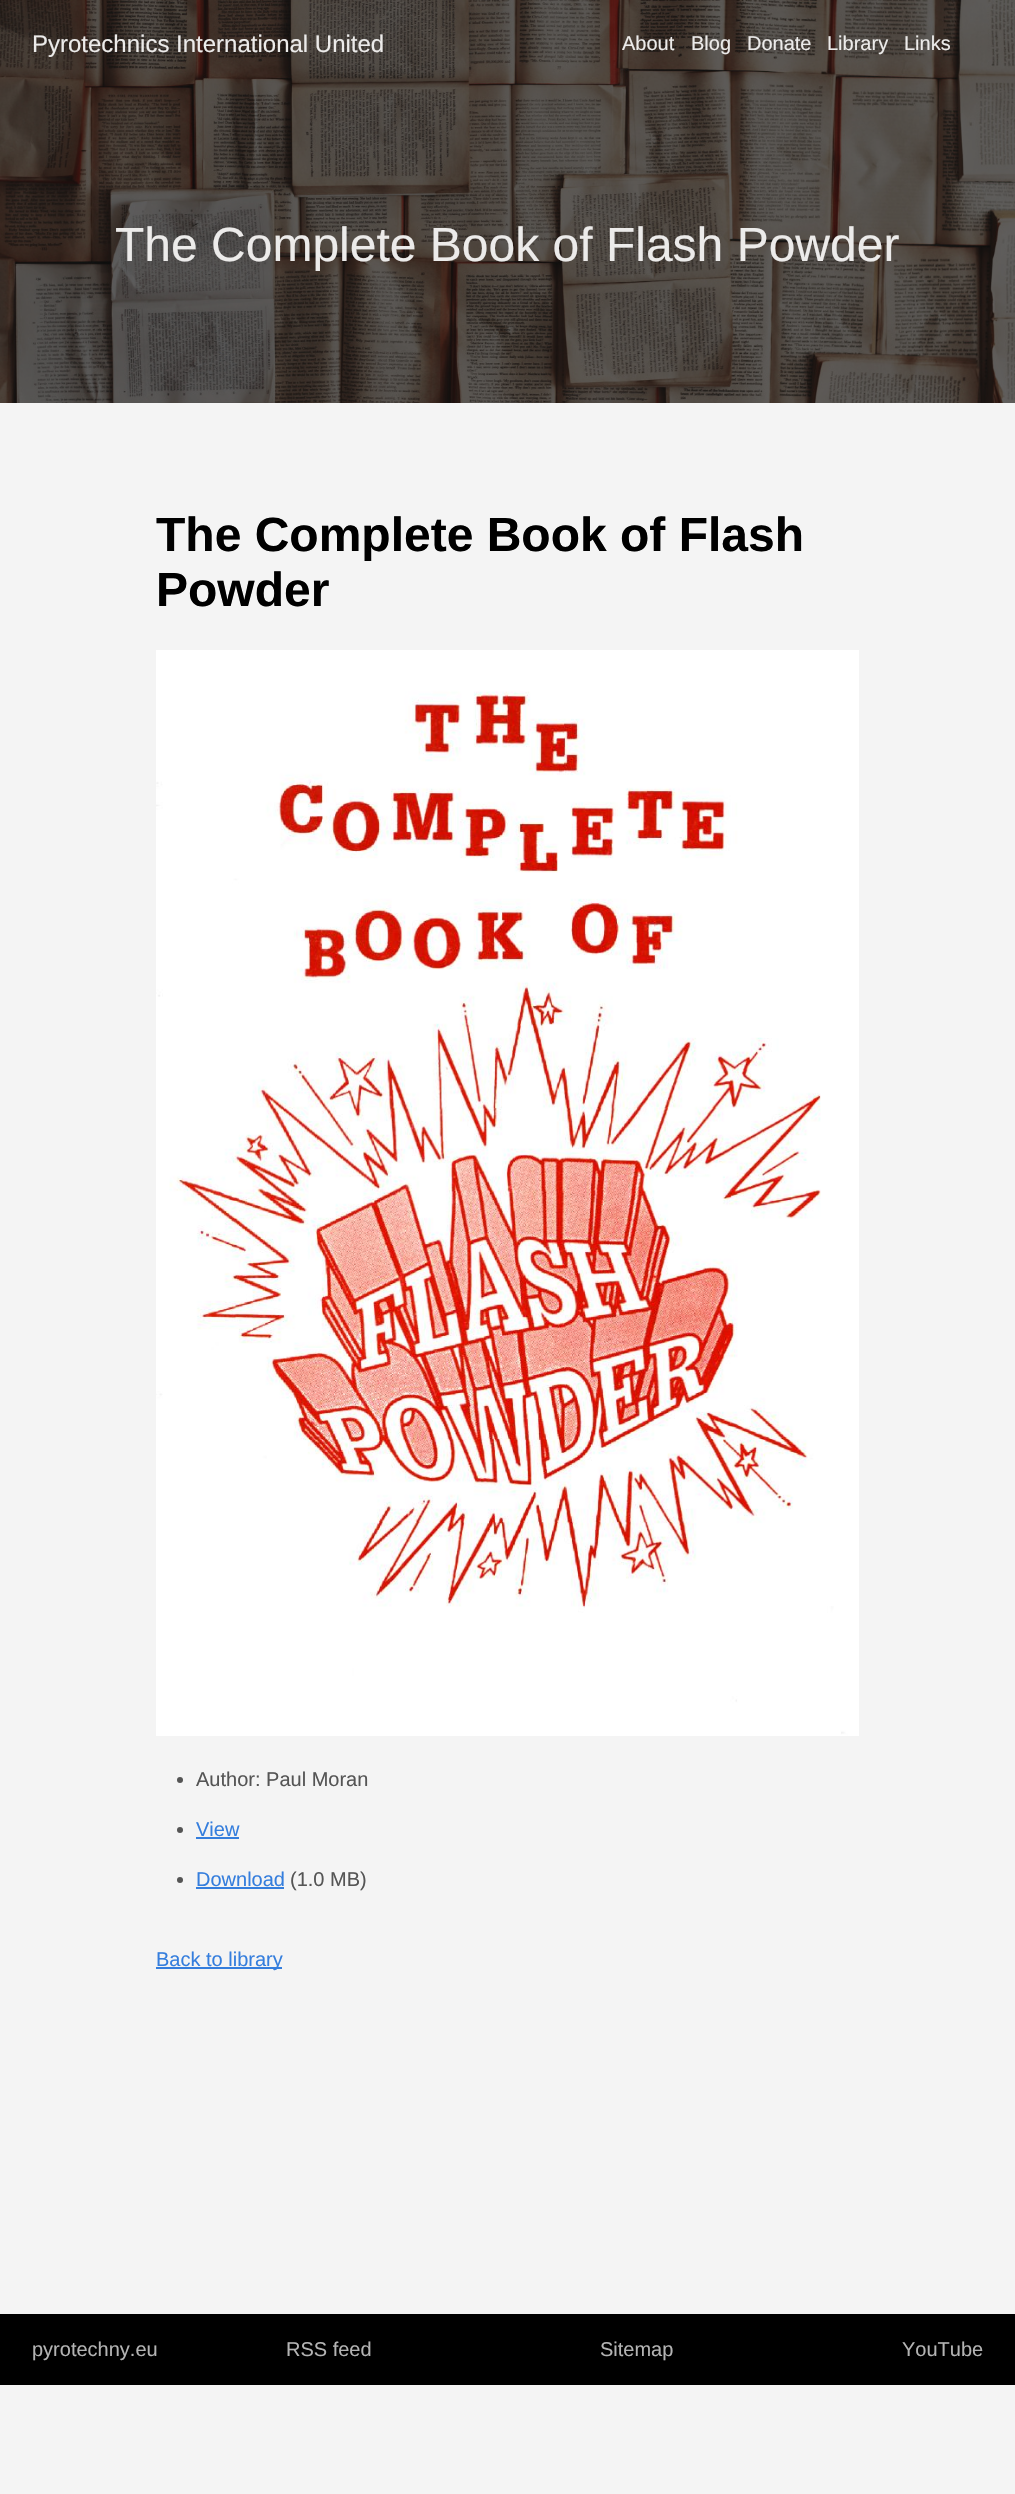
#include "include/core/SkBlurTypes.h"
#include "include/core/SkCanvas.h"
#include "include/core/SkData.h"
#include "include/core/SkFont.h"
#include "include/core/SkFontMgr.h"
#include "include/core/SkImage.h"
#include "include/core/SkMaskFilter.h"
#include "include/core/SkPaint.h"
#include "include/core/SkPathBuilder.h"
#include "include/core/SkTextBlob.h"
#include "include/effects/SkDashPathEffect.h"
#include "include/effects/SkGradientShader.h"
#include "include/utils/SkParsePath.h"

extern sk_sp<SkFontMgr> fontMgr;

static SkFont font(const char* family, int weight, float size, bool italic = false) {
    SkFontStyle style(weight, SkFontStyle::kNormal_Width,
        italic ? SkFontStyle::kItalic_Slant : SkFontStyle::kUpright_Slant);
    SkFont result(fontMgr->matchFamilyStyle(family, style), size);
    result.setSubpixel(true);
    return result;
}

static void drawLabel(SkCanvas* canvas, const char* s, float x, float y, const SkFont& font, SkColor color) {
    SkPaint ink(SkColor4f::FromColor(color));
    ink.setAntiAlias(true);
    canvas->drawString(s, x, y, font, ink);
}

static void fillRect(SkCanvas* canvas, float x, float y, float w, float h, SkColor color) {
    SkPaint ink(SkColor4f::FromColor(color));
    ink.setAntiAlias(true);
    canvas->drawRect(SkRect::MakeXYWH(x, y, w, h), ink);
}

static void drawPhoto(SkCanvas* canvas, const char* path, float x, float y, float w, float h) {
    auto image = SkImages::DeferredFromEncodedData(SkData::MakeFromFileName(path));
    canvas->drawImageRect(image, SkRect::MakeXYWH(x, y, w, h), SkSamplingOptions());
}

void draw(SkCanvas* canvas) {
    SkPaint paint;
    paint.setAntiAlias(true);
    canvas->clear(0xFFF4F4F4);
    drawPhoto(canvas, "assets/img1.png", 0, 0, 1015, 403);
    SkFont font1 = font("Liberation Sans", 400, 24);
    drawLabel(canvas, "Pyrotechnics International United", 32, 52, font1, 0xFFECEBEA);
    SkFont font2 = font("Liberation Sans", 400, 20);
    drawLabel(canvas, "About", 622, 50, font2, 0xFFECEBEA);
    drawLabel(canvas, "Blog", 691, 50, font2, 0xFFECEBEA);
    drawLabel(canvas, "Donate", 747, 50, font2, 0xFFECEBEA);
    drawLabel(canvas, "Library", 827, 50, font2, 0xFFECEBEA);
    drawLabel(canvas, "Links", 904, 50, font2, 0xFFECEBEA);
    SkFont font3 = font("Liberation Sans", 400, 48);
    drawLabel(canvas, "The Complete Book of Flash Powder", 115, 261, font3, 0xFFECEBEA);
    SkFont font4 = font("Liberation Sans", 700, 48);
    drawLabel(canvas, "The Complete Book of Flash", 156, 551, font4, 0xFF000000);
    drawLabel(canvas, "Powder", 156, 606, font4, 0xFF000000);
    drawPhoto(canvas, "assets/img2.png", 156, 650, 703, 1086);
    paint.setColor(0xFF555555);
    canvas->drawCircle(180, 1780, 3, paint);
    drawLabel(canvas, "Author: Paul Moran", 196, 1786, font2, 0xFF555555);
    canvas->drawCircle(180, 1830, 3, paint);
    drawLabel(canvas, "View", 196, 1836, font2, 0xFF357EDD);
    fillRect(canvas, 196, 1837, 43, 2, 0xFF357EDD);
    canvas->drawCircle(180, 1880, 3, paint);
    drawLabel(canvas, "Download", 196, 1886, font2, 0xFF357EDD);
    fillRect(canvas, 196, 1887, 88, 2, 0xFF357EDD);
    drawLabel(canvas, "(1.0 MB)", 290, 1886, font2, 0xFF555555);
    fillRect(canvas, 156, 1967, 126, 2, 0xFF357EDD);
    drawLabel(canvas, "Back to library", 156, 1966, font2, 0xFF357EDD);
    fillRect(canvas, 0, 2314, 1015, 71, 0xFF000000);
    drawLabel(canvas, "pyrotechny.eu", 32, 2356, font2, 0xFFB3B3B3);
    drawLabel(canvas, "RSS feed", 286, 2356, font2, 0xFFB3B3B3);
    drawLabel(canvas, "Sitemap", 600, 2356, font2, 0xFFB3B3B3);
    drawLabel(canvas, "YouTube", 902, 2356, font2, 0xFFB3B3B3);
}
